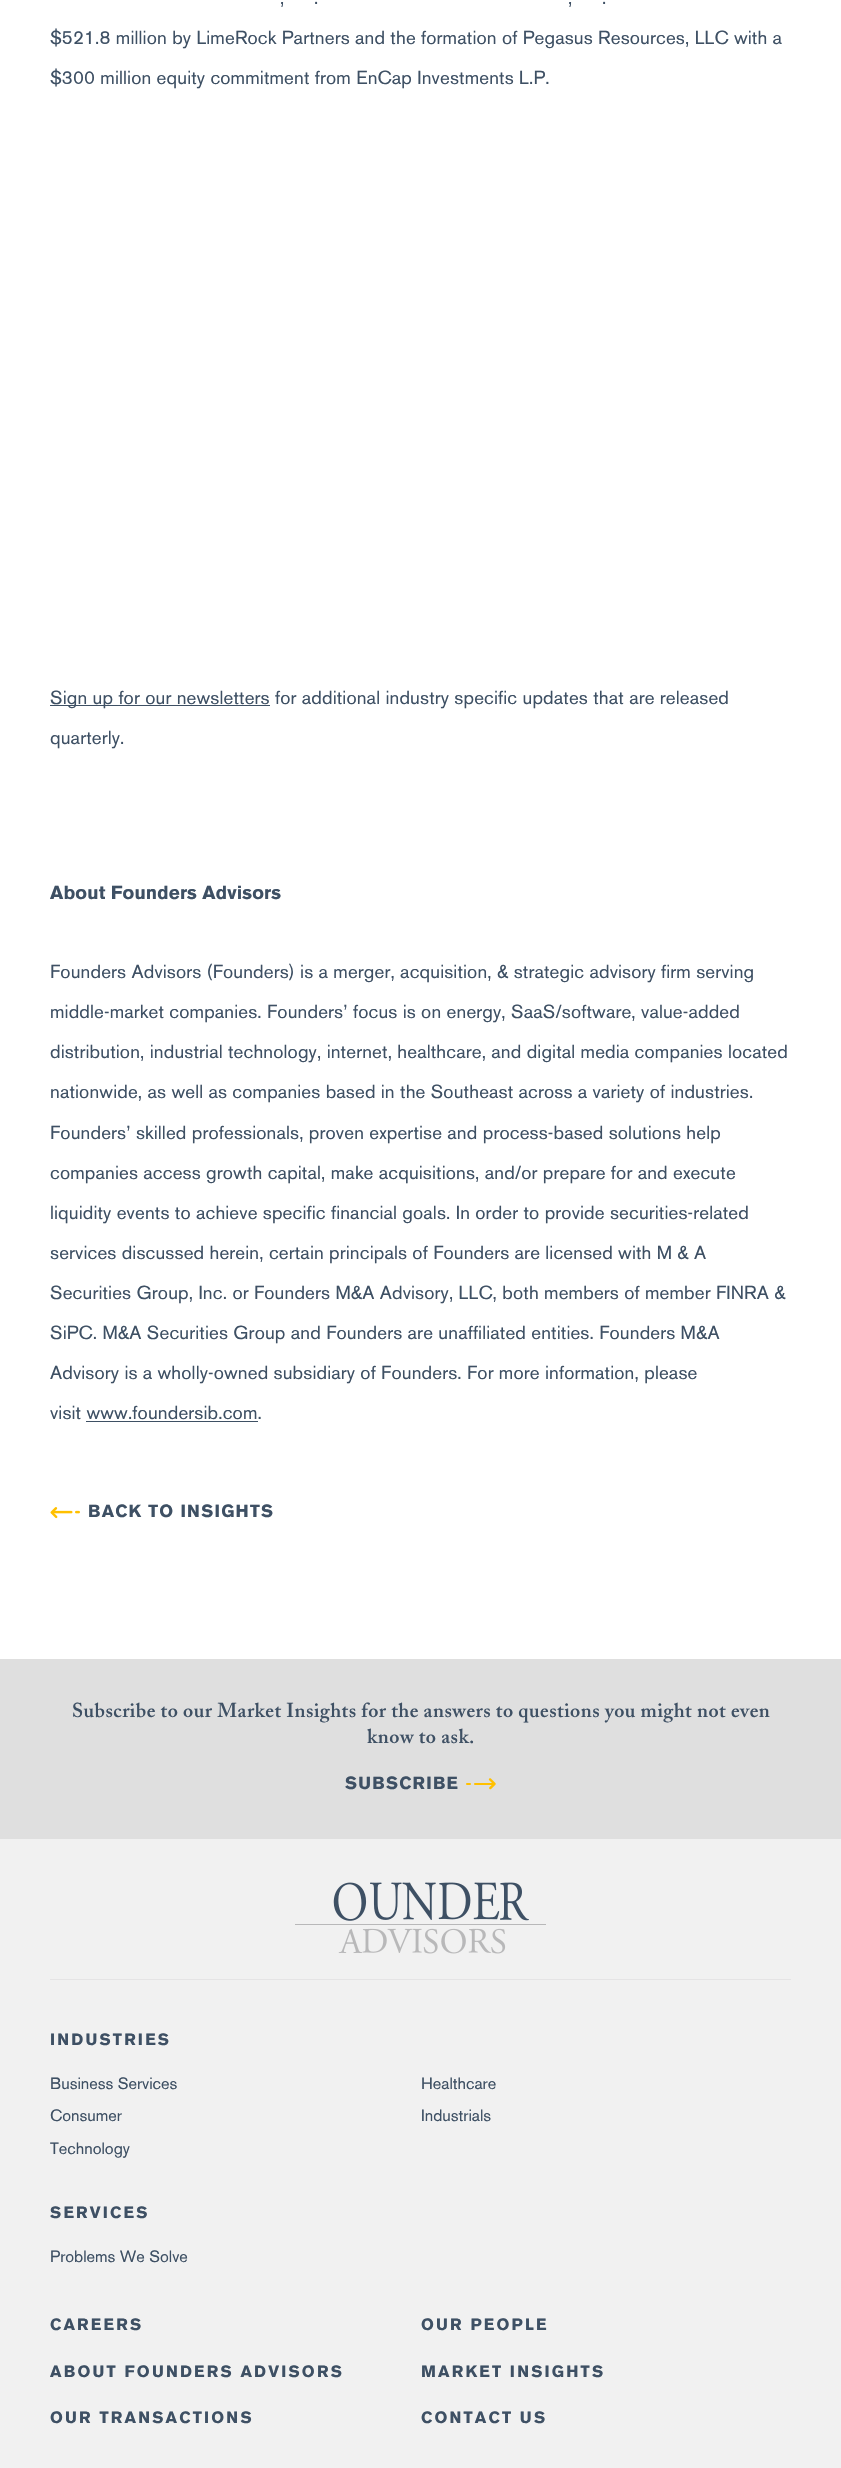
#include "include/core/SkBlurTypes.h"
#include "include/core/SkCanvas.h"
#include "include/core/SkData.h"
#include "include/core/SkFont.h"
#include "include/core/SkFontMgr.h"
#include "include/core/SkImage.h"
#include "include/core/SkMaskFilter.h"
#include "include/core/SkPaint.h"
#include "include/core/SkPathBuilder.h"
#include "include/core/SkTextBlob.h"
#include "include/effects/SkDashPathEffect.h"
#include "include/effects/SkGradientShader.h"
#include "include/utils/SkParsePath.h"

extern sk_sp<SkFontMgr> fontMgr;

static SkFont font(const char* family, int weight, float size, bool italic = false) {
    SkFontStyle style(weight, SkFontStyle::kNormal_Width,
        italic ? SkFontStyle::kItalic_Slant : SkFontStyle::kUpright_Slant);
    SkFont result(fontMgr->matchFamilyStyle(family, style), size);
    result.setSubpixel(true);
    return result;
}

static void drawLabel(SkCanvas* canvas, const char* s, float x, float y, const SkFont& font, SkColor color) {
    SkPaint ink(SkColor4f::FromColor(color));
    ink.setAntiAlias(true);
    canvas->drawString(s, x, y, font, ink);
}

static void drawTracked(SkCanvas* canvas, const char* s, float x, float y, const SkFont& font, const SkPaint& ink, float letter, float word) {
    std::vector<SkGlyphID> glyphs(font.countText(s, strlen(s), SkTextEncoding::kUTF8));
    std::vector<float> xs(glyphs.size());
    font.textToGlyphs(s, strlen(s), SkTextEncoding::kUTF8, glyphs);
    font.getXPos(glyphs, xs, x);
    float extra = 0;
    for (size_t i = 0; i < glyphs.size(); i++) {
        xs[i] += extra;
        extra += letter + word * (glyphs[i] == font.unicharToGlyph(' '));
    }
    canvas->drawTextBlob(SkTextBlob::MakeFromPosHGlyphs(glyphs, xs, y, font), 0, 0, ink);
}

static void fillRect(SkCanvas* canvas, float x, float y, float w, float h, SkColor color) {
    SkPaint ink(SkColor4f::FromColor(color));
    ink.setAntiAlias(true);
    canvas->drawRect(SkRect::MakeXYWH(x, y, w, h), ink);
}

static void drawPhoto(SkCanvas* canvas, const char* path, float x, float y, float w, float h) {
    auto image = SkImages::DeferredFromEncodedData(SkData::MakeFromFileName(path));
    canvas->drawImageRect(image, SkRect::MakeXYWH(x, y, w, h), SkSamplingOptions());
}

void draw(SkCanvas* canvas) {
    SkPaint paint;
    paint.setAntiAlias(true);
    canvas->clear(0xFFFFFFFF);
    SkFont font1 = font("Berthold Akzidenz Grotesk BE", 400, 18.75f);
    paint.setColor(0xFF3E5064);
    drawTracked(canvas, ",", 280, 4, font1, paint, 0.15f, 0);
    drawTracked(canvas, ".", 314, 4, font1, paint, 0.15f, 0);
    drawTracked(canvas, ",", 568, 4, font1, paint, 0.15f, 0);
    drawTracked(canvas, ".", 602, 4, font1, paint, 0.15f, 0);
    drawTracked(canvas, "$521.8 million by LimeRock Partners and the formation of Pegasus Resources, LLC with a", 50, 44, font1, paint, 0.15f, 0);
    drawTracked(canvas, "$300 million equity commitment from EnCap Investments L.P.", 50, 84, font1, paint, 0.15f, 0);
    fillRect(canvas, 50, 705, 220, 1, 0xFF3E5064);
    drawTracked(canvas, "Sign up for our newsletters for additional industry specific updates that are released", 50, 704, font1, paint, 0.15f, 0);
    drawTracked(canvas, "quarterly.", 50, 744, font1, paint, 0.15f, 0);
    SkFont font2 = font("Berthold Akzidenz Grotesk BE", 700, 18.75f);
    drawTracked(canvas, "About Founders Advisors", 50, 899, font2, paint, 0.15f, 0);
    drawTracked(canvas, "Founders Advisors (Founders) is a merger, acquisition, & strategic advisory firm serving", 50, 978, font1, paint, 0.15f, 0);
    drawTracked(canvas, "middle-market companies. Founders’ focus is on energy, SaaS/software, value-added", 50, 1018, font1, paint, 0.15f, 0);
    drawTracked(canvas, "distribution, industrial technology, internet, healthcare, and digital media companies located", 50, 1058, font1, paint, 0.15f, 0);
    drawTracked(canvas, "nationwide, as well as companies based in the Southeast across a variety of industries.", 50, 1098, font1, paint, 0.15f, 0);
    drawTracked(canvas, "Founders’ skilled professionals, proven expertise and process-based solutions help", 50, 1139, font1, paint, 0.15f, 0);
    drawTracked(canvas, "companies access growth capital, make acquisitions, and/or prepare for and execute", 50, 1179, font1, paint, 0.15f, 0);
    drawTracked(canvas, "liquidity events to achieve specific financial goals. In order to provide securities-related", 50, 1219, font1, paint, 0.15f, 0);
    drawTracked(canvas, "services discussed herein, certain principals of Founders are licensed with M & A", 50, 1259, font1, paint, 0.15f, 0);
    drawTracked(canvas, "Securities Group, Inc. or Founders M&A Advisory, LLC, both members of member FINRA &", 50, 1299, font1, paint, 0.15f, 0);
    drawTracked(canvas, "SiPC. M&A Securities Group and Founders are unaffiliated entities. Founders M&A", 50, 1339, font1, paint, 0.15f, 0);
    drawTracked(canvas, "Advisory is a wholly-owned subsidiary of Founders. For more information, please", 50, 1379, font1, paint, 0.15f, 0);
    drawTracked(canvas, "visit www.foundersib.com.", 50, 1419, font1, paint, 0.15f, 0);
    fillRect(canvas, 86, 1421, 172, 1, 0xFF3E5064);
    drawPhoto(canvas, "assets/img1.png", 50, 1507, 30, 12);
    SkFont font3 = font("Berthold Akzidenz Grotesk BE", 700, 17.5f);
    drawTracked(canvas, "BACK TO INSIGHTS", 88, 1517, font3, paint, 1.25f, 0);
    fillRect(canvas, 0, 1659, 841, 180, 0xFFDFDFDF);
    SkFont font4 = font("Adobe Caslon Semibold", 600, 20);
    drawTracked(canvas, "Subscribe to our Market Insights for the answers to questions you might not even", 72, 1717, font4, paint, 0.5f, 0);
    drawTracked(canvas, "know to ask.", 367, 1743, font4, paint, 0.5f, 0);
    drawTracked(canvas, "SUBSCRIBE", 345, 1789, font3, paint, 1.25f, 0);
    drawPhoto(canvas, "assets/img2.png", 466, 1778, 30, 12);
    fillRect(canvas, 0, 1839, 841, 629, 0xFFF1F1F1);
    fillRect(canvas, 50, 1979, 741, 1, 0xFFE5E4E5);
    drawPhoto(canvas, "assets/img3.png", 295, 1882, 251, 72);
    SkFont font5 = font("Berthold Akzidenz Grotesk BE", 700, 16.25f);
    drawTracked(canvas, "INDUSTRIES", 50, 2045, font5, paint, 2.2f, 0);
    SkFont font6 = font("Berthold Akzidenz Grotesk BE", 400, 16.25f);
    drawLabel(canvas, "Business Services", 50, 2089, font6, 0xFF3E5064);
    drawLabel(canvas, "Healthcare", 421, 2089, font6, 0xFF3E5064);
    drawLabel(canvas, "Consumer", 50, 2121, font6, 0xFF3E5064);
    drawLabel(canvas, "Industrials", 421, 2121, font6, 0xFF3E5064);
    drawLabel(canvas, "Technology", 50, 2154, font6, 0xFF3E5064);
    drawTracked(canvas, "SERVICES", 50, 2218, font5, paint, 2.2f, 0);
    drawLabel(canvas, "Problems We Solve", 50, 2262, font6, 0xFF3E5064);
    drawTracked(canvas, "CAREERS", 50, 2330, font5, paint, 2.2f, 0);
    drawTracked(canvas, "OUR PEOPLE", 421, 2330, font5, paint, 2.2f, 0);
    drawTracked(canvas, "ABOUT FOUNDERS ADVISORS", 50, 2377, font5, paint, 2.2f, 0);
    drawTracked(canvas, "MARKET INSIGHTS", 421, 2377, font5, paint, 2.2f, 0);
    drawTracked(canvas, "OUR TRANSACTIONS", 50, 2423, font5, paint, 2.2f, 0);
    drawTracked(canvas, "CONTACT US", 421, 2423, font5, paint, 2.2f, 0);
}
